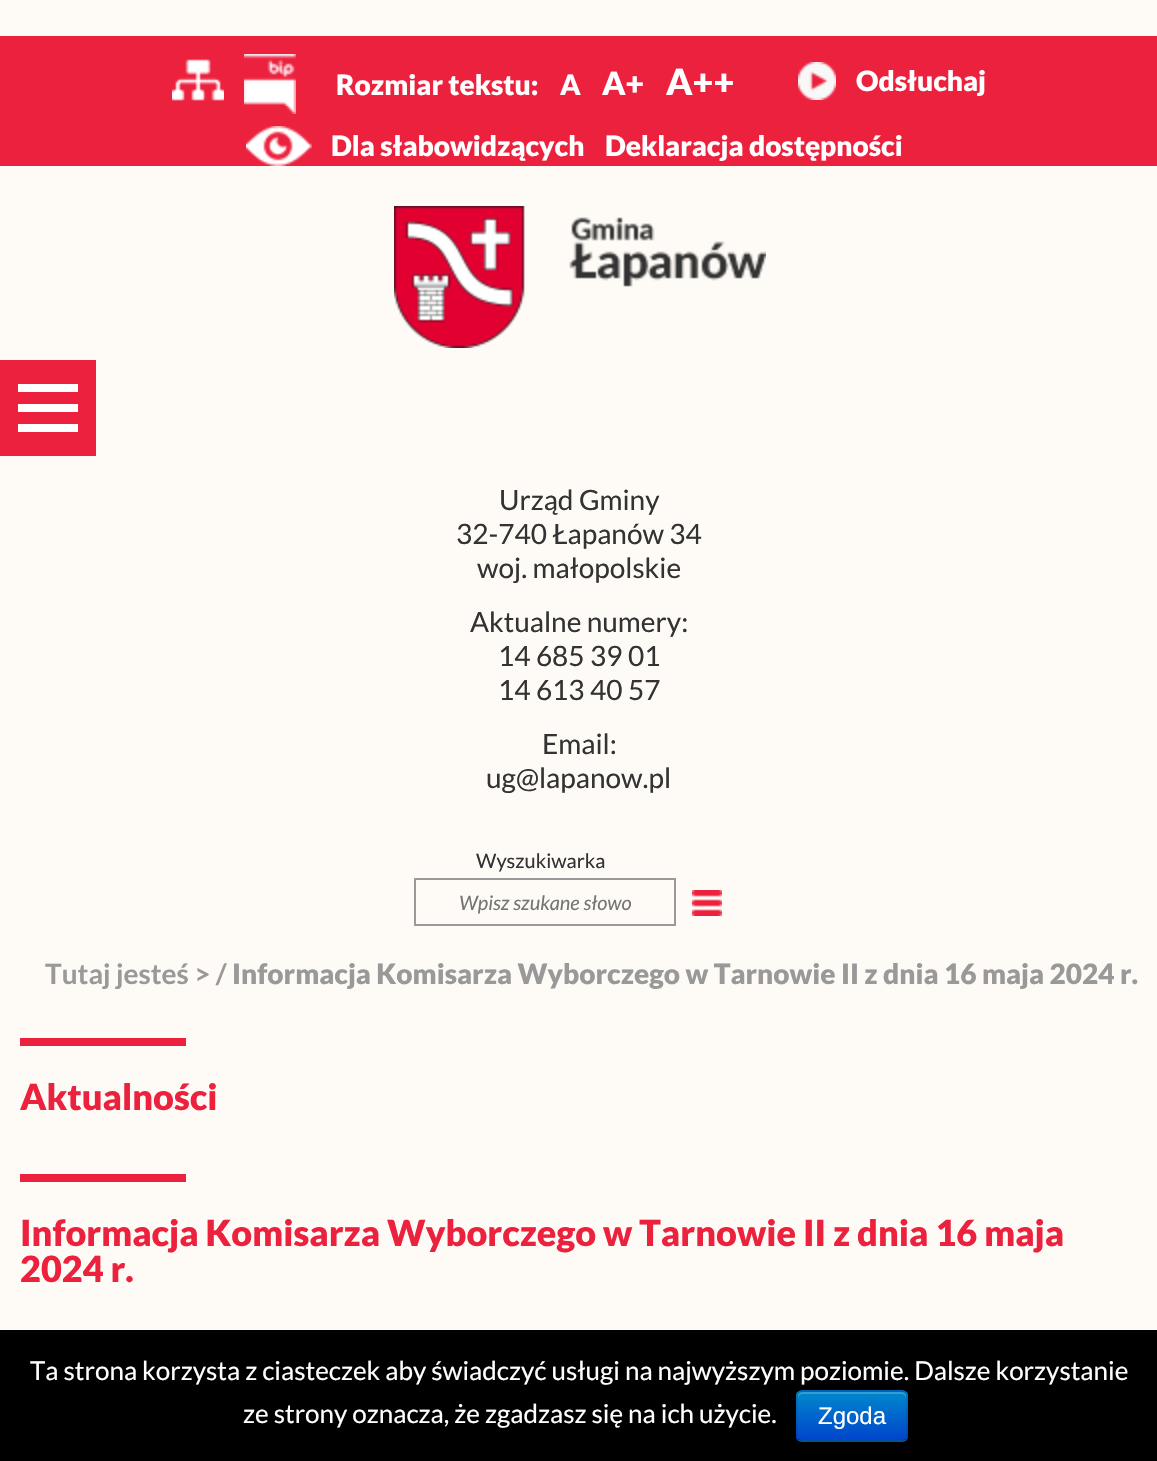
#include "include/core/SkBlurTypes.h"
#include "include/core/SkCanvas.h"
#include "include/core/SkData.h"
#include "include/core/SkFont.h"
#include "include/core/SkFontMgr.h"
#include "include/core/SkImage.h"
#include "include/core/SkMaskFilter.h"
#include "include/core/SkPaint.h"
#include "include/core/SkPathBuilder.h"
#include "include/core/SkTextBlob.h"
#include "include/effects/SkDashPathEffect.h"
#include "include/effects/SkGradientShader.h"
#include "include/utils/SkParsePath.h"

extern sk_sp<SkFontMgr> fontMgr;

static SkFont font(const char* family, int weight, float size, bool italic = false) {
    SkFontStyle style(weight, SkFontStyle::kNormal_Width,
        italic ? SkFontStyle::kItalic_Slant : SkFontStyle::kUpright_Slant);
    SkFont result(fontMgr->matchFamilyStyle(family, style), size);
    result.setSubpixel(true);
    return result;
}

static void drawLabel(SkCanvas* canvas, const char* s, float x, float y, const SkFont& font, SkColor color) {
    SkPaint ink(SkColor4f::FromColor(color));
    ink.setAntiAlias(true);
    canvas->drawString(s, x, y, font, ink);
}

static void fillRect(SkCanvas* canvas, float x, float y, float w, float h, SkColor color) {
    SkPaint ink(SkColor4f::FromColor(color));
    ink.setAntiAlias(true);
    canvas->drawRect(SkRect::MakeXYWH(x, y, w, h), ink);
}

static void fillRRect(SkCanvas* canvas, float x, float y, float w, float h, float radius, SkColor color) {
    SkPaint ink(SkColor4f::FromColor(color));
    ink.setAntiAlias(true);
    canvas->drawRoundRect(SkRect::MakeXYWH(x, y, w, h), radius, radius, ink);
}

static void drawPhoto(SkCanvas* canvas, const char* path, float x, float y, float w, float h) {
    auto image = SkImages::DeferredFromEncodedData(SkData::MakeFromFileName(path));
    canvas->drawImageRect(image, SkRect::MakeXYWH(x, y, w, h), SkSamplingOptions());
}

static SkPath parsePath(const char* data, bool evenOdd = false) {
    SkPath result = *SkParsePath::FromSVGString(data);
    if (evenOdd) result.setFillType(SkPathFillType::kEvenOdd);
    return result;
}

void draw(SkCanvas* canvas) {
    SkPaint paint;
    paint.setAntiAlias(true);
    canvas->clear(0xFFFEFBF6);
    fillRect(canvas, 0, 36, 1157, 130, 0xFFEC213E);
    drawPhoto(canvas, "assets/img1.png", 172, 59, 52, 42);
    drawPhoto(canvas, "assets/img2.png", 244, 54, 52, 52);
    drawPhoto(canvas, "assets/img3.png", 286, 106, 10, 8);
    SkFont font1 = font("Lato", 900, 28);
    drawLabel(canvas, "Rozmiar tekstu:", 336, 95, font1, 0xFFFFFFFF);
    drawLabel(canvas, "A", 560, 95, font1, 0xFFFFFFFF);
    SkFont font2 = font("Lato", 900, 32);
    drawLabel(canvas, "A+", 602, 95, font2, 0xFFFFFFFF);
    SkFont font3 = font("Lato", 900, 36);
    drawLabel(canvas, "A++", 666, 95, font3, 0xFFFFFFFF);
    drawPhoto(canvas, "assets/img4.png", 798, 62, 38, 38);
    drawLabel(canvas, "Odsłuchaj", 856, 91, font1, 0xFFFFFFFF);
    drawPhoto(canvas, "assets/img5.png", 246, 126, 66, 40);
    drawLabel(canvas, "Dla słabowidzących", 331, 156, font1, 0xFFFFFFFF);
    drawLabel(canvas, "Deklaracja dostępności", 605, 156, font1, 0xFFFFFFFF);
    drawPhoto(canvas, "assets/img6.png", 394, 206, 372, 142);
    SkFont font4 = font("Lato", 400, 28);
    drawLabel(canvas, "Urząd Gminy", 499, 510, font4, 0xFF333333);
    drawLabel(canvas, "32-740 Łapanów 34", 456, 544, font4, 0xFF333333);
    drawLabel(canvas, "woj. małopolskie", 477, 578, font4, 0xFF333333);
    drawLabel(canvas, "Aktualne numery:", 470, 632, font4, 0xFF333333);
    drawLabel(canvas, "14 685 39 01", 498, 666, font4, 0xFF333333);
    drawLabel(canvas, "14 613 40 57", 498, 700, font4, 0xFF333333);
    drawLabel(canvas, "Email:", 542, 754, font4, 0xFF333333);
    drawLabel(canvas, "ug@lapanow.pl", 486, 788, font4, 0xFF333333);
    fillRect(canvas, 0, 360, 96, 96, 0xFFEC213E);
    fillRect(canvas, 18, 404, 60, 8, 0xFFFFFFFF);
    fillRect(canvas, 18, 384, 60, 8, 0xFFFFFFFF);
    fillRect(canvas, 18, 424, 60, 8, 0xFFFFFFFF);
    SkFont font5 = font("Lato", 400, 20);
    drawLabel(canvas, "Wyszukiwarka", 476, 868, font5, 0xFF333333);
    paint.setStroke(true);
    paint.setStrokeWidth(2);
    paint.setColor(0xFF999999);
    canvas->drawRect(SkRect::MakeXYWH(415, 879, 260, 46), paint);
    SkFont font6 = font("Lato", 400, 20, true);
    drawLabel(canvas, "Wpisz szukane słowo", 459, 910, font6, 0xFF757575);
    drawPhoto(canvas, "assets/img7.png", 692, 890, 30, 26);
    SkFont font7 = font("Lato", 700, 28);
    drawLabel(canvas, "Tutaj jesteś > /", 45, 984, font7, 0xFF999999);
    drawLabel(canvas, "Informacja Komisarza Wyborczego w Tarnowie II z dnia 16 maja 2024 r.", 232, 984, font1, 0xFF999999);
    fillRect(canvas, 20, 1038, 166, 8, 0xFFEC213E);
    drawLabel(canvas, "Aktualności", 20, 1110, font3, 0xFFEC213E);
    fillRect(canvas, 20, 1174, 166, 8, 0xFFEC213E);
    drawLabel(canvas, "Informacja Komisarza Wyborczego w Tarnowie II z dnia 16 maja", 20, 1246, font3, 0xFFEC213E);
    drawLabel(canvas, "2024 r.", 20, 1282, font3, 0xFFEC213E);
    fillRect(canvas, 0, 1330, 1157, 131, 0xFF000000);
    SkFont font8 = font("Lato", 400, 26);
    drawLabel(canvas, "Ta strona korzysta z ciasteczek aby świadczyć usługi na najwyższym poziomie. Dalsze korzystanie", 30, 1380, font8, 0xFFFFFFFF);
    drawLabel(canvas, "ze strony oznacza, że zgadzasz się na ich użycie.", 243, 1423, font8, 0xFFFFFFFF);
    fillRRect(canvas, 796, 1390, 112, 52, 6, 0xFF006DCC);
    canvas->save();
    canvas->clipPath(parsePath("M802 1390H902C905.5 1390 908 1392.5 908 1396V1436C908 1439.5 905.5 1442 902 1442H802C798.5 1442 796 1439.5 796 1436V1396C796 1392.5 798.5 1390 802 1390Z"), true);
    paint.setStroke(false);
    {
        const SkColor colors[] = {0xFF0088CC, 0xFF0044CC};
        const float stops[] = {0, 1};
        const SkPoint ends[] = {{852, 1392}, {852, 1440}};
        paint.setShader(SkGradientShader::MakeLinear(ends, colors, stops, 2, SkTileMode::kClamp));
        paint.setAlpha(255);
    }
    canvas->drawRect(SkRect::MakeXYWH(796, 1392, 112, 48), paint);
    canvas->restore();
    paint.setShader(nullptr);
    paint.setColor(0x33FFFFFF);
    canvas->drawPath(parsePath("M802 1394H902C904 1394 906 1396 906 1398V1396C906 1394 904 1392 902 1392H802C800 1392 798 1394 798 1396V1398C798 1396 800 1394 802 1394Z"), paint);
    paint.setStroke(true);
    paint.setColor(0x40000000);
    canvas->drawPath(parsePath("M905.5 1439.5C904.5 1440.5 903.5 1441 902 1441H802C800.5 1441 799.5 1440.5 798.5 1439.5"), paint);
    paint.setColor(0x1A000000);
    canvas->drawPath(parsePath("M798.5 1439.5C796 1437 797 1432 797 1429.5V1416C797 1388.5 792 1391 818.5 1391H885.5C912 1391 907 1388.5 907 1416V1429.5C907 1432 908 1437 905.5 1439.5"), paint);
    SkFont font9 = font("Liberation Sans", 400, 24);
    drawLabel(canvas, "Zgoda", 818, 1424, font9, 0xFFFFFFFF);
}
